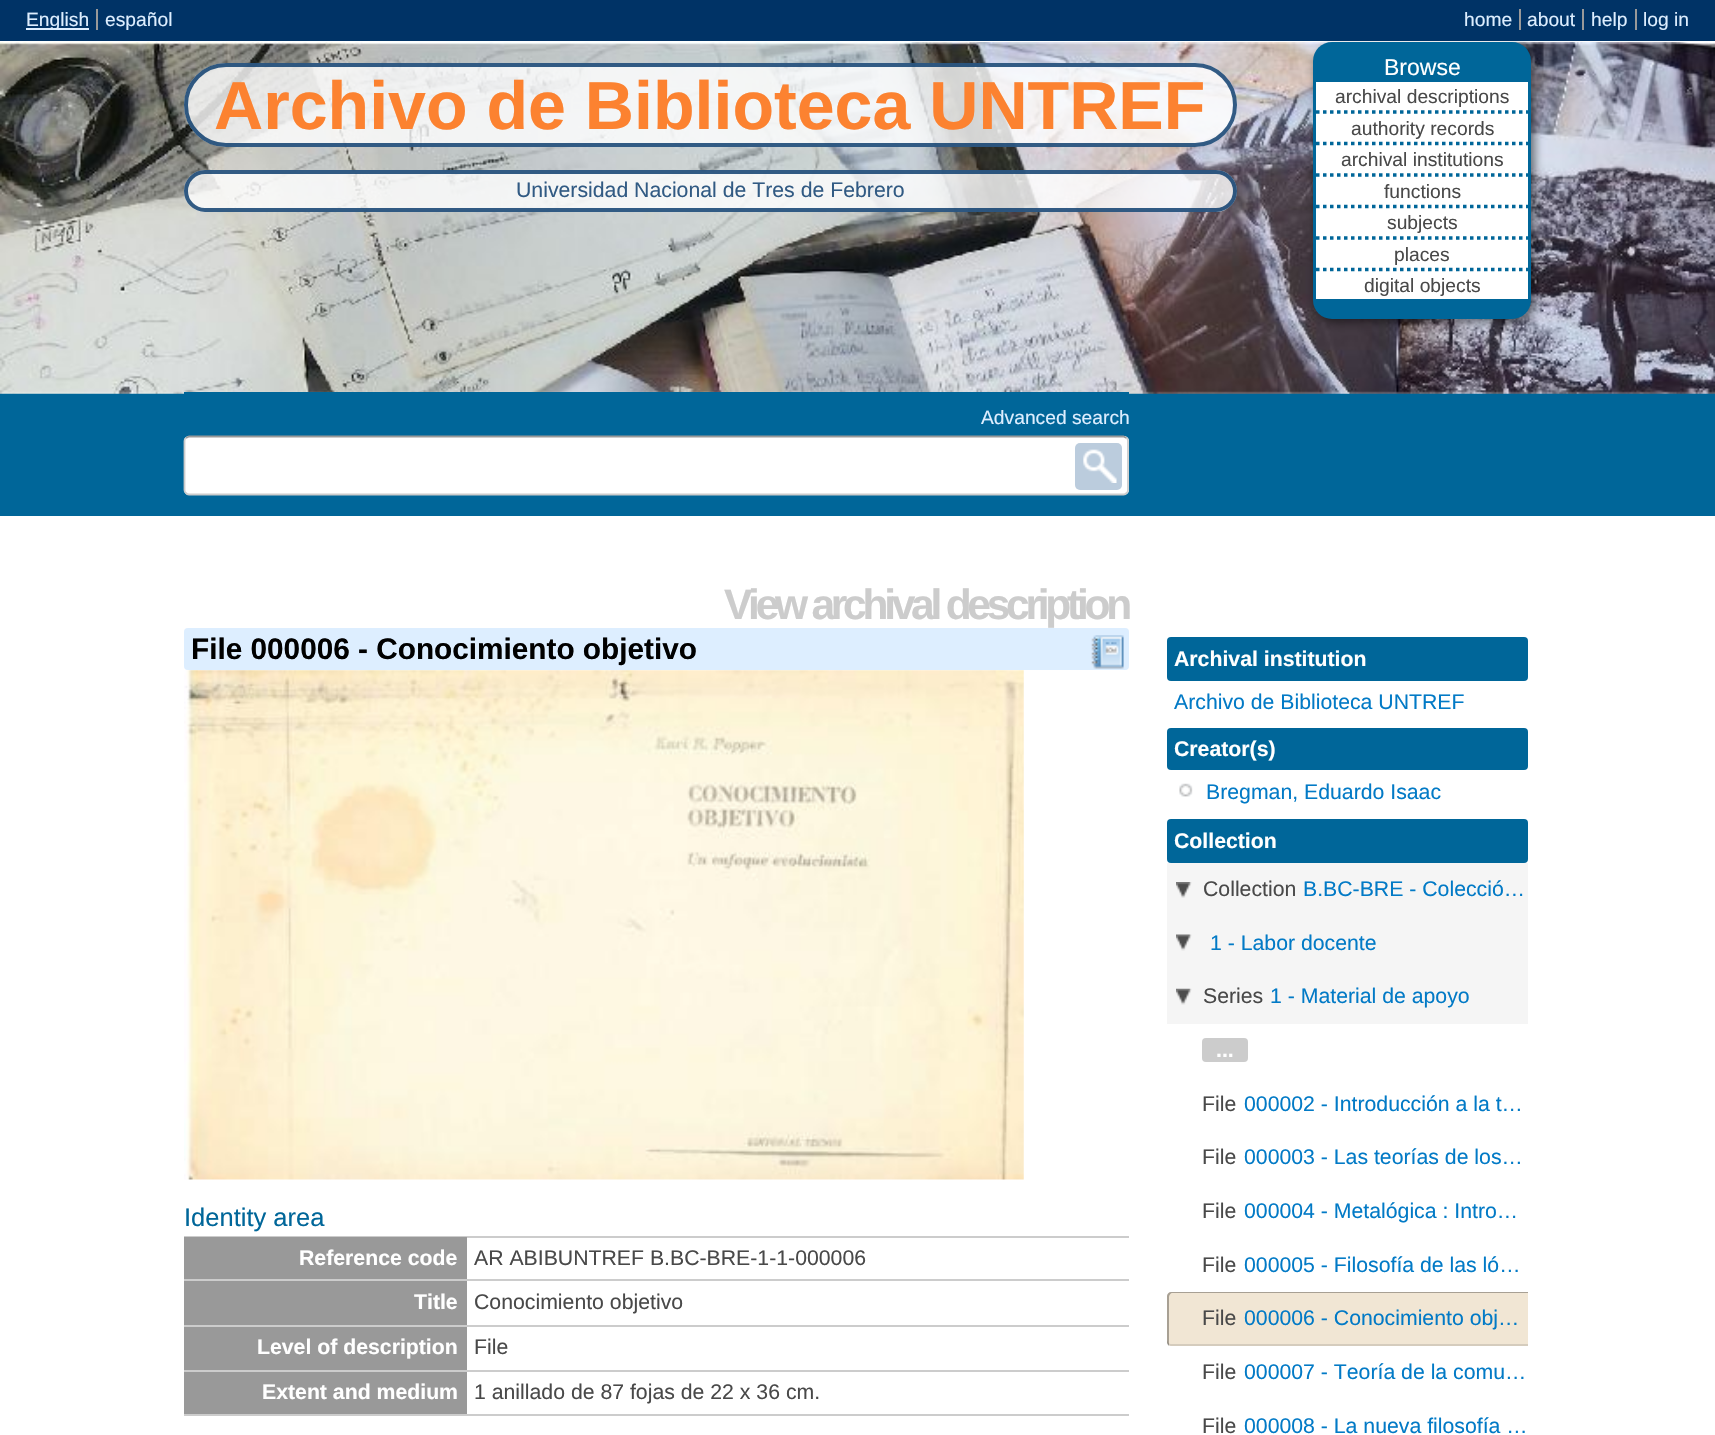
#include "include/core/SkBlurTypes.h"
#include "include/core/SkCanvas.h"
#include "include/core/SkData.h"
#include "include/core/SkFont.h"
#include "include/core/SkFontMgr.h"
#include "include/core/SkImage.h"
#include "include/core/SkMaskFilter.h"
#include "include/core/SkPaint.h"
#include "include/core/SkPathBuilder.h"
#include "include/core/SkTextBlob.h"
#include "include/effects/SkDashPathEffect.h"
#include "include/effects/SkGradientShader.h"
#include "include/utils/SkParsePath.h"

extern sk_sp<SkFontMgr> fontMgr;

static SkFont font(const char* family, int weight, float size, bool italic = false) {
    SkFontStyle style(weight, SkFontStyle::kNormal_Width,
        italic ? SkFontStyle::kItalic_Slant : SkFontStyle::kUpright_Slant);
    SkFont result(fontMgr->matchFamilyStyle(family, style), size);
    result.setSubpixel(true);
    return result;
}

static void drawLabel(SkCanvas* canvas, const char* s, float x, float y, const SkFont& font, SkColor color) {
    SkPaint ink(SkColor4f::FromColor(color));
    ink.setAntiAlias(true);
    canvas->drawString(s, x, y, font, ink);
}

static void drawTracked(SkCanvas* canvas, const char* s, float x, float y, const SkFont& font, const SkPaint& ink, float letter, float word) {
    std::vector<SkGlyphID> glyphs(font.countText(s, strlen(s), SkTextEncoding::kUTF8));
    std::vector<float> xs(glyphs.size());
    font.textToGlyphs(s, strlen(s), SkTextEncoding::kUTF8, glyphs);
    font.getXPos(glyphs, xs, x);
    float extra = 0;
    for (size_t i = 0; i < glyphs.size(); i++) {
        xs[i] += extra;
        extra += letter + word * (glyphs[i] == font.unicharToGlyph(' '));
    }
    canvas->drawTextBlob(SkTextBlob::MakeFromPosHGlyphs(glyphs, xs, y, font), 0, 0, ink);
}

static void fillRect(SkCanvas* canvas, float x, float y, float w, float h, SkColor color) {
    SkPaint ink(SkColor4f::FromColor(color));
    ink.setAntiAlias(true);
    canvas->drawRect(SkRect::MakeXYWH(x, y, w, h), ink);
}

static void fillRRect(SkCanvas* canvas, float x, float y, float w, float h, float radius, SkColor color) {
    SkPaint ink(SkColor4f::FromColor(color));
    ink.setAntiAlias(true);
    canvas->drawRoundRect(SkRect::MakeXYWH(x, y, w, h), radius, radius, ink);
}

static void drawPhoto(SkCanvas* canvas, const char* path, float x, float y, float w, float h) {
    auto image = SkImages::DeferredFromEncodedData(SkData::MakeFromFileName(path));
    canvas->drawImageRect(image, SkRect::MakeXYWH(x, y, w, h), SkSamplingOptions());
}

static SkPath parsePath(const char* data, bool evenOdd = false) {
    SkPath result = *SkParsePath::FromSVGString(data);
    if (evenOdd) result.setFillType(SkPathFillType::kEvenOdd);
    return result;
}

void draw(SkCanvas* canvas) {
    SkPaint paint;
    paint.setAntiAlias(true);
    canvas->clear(0xFFFFFFFF);
    fillRect(canvas, 0, 393, 1715, 123, 0xFF006699);
    drawPhoto(canvas, "assets/img1.png", 0, 42, 1715, 352);
    paint.setColor(0x80000000);
    paint.setMaskFilter(SkMaskFilter::MakeBlur(kNormal_SkBlurStyle, 5));
    canvas->drawRoundRect(SkRect::MakeXYWH(1316, 46, 219, 276), 19, 19, paint);
    paint.setMaskFilter(nullptr);
    fillRect(canvas, 0, 0, 1715, 41, 0xFF003366);
    fillRect(canvas, 26, 28, 63, 2, 0xFFDDEEFF);
    SkFont font1 = font("Liberation Sans", 400, 19.25f);
    drawLabel(canvas, "English", 26, 26, font1, 0xFFDDEEFF);
    fillRect(canvas, 96, 9, 2, 21, 0xFF999999);
    drawLabel(canvas, "español", 105, 26, font1, 0xFFDDEEFF);
    drawLabel(canvas, "home", 1464, 26, font1, 0xFFDDEEFF);
    fillRect(canvas, 1519, 9, 2, 21, 0xFF999999);
    drawLabel(canvas, "about", 1527, 26, font1, 0xFFDDEEFF);
    fillRect(canvas, 1582, 9, 2, 21, 0xFF999999);
    drawLabel(canvas, "help", 1591, 26, font1, 0xFFDDEEFF);
    fillRect(canvas, 1635, 9, 2, 21, 0xFF999999);
    drawLabel(canvas, "log in", 1643, 26, font1, 0xFFDDEEFF);
    fillRRect(canvas, 184, 63, 1053, 84, 42, 0xCCFFFFFF);
    paint.setStroke(true);
    paint.setStrokeWidth(4);
    paint.setColor(0xCC003366);
    canvas->drawRoundRect(SkRect::MakeXYWH(186, 65, 1049, 80), 40, 40, paint);
    SkFont font2 = font("Liberation Sans", 700, 68.1f);
    drawLabel(canvas, "Archivo de Biblioteca UNTREF", 214, 129, font2, 0xFFFC8230);
    fillRRect(canvas, 184, 170, 1053, 42, 21, 0xCCFFFFFF);
    canvas->drawRoundRect(SkRect::MakeXYWH(186, 172, 1049, 38), 19, 19, paint);
    SkFont font3 = font("Liberation Sans", 400, 21.25f);
    drawLabel(canvas, "Universidad Nacional de Tres de Febrero", 516, 197, font3, 0xFF315A83);
    fillRRect(canvas, 1313, 42, 218, 277, 19, 0xFF006699);
    SkFont font4 = font("Liberation Sans", 400, 23);
    drawLabel(canvas, "Browse", 1384, 75, font4, 0xFFFFFFFF);
    fillRect(canvas, 1316, 82, 212, 217, 0xFFFFFFFF);
    drawLabel(canvas, "archival descriptions", 1335, 103, font1, 0xFF494949);
    paint.setStrokeWidth(3.5f);
    paint.setColor(0xFF006699);
    paint.setPathEffect(SkDashPathEffect::Make({{3.5f, 3.5f}}, 0));
    canvas->drawPath(parsePath("M1316 112H1528"), paint);
    paint.setPathEffect(nullptr);
    drawLabel(canvas, "authority records", 1351, 135, font1, 0xFF494949);
    paint.setPathEffect(SkDashPathEffect::Make({{3.5f, 3.5f}}, 0));
    canvas->drawPath(parsePath("M1316 143.5H1528"), paint);
    paint.setPathEffect(nullptr);
    drawLabel(canvas, "archival institutions", 1341, 166, font1, 0xFF494949);
    paint.setPathEffect(SkDashPathEffect::Make({{3.5f, 3.5f}}, 0));
    canvas->drawPath(parsePath("M1316 175H1528"), paint);
    paint.setPathEffect(nullptr);
    drawLabel(canvas, "functions", 1384, 198, font1, 0xFF494949);
    paint.setPathEffect(SkDashPathEffect::Make({{3.5f, 3.5f}}, 0));
    canvas->drawPath(parsePath("M1316 206.5H1528"), paint);
    paint.setPathEffect(nullptr);
    drawLabel(canvas, "subjects", 1387, 229, font1, 0xFF494949);
    paint.setPathEffect(SkDashPathEffect::Make({{3.5f, 3.5f}}, 0));
    canvas->drawPath(parsePath("M1316 238H1528"), paint);
    paint.setPathEffect(nullptr);
    drawLabel(canvas, "places", 1394, 261, font1, 0xFF494949);
    paint.setPathEffect(SkDashPathEffect::Make({{3.5f, 3.5f}}, 0));
    canvas->drawPath(parsePath("M1316 269.5H1528"), paint);
    paint.setPathEffect(nullptr);
    drawLabel(canvas, "digital objects", 1364, 292, font1, 0xFF494949);
    fillRect(canvas, 184, 392, 945, 2, 0xFF006699);
    drawLabel(canvas, "Advanced search", 981, 424, font1, 0xFFDDEEFF);
    fillRRect(canvas, 184, 436, 945, 59, 5, 0xFFFFFFFF);
    paint.setStrokeWidth(1.8f);
    paint.setColor(0xFF999999);
    canvas->drawPath(parsePath("M186 438L189 436.5H1123.5L1126.5 438"), paint);
    paint.setColor(0xFFCCCCCC);
    canvas->drawPath(parsePath("M1126.5 438C1127.5 438.5 1128 440 1128 441V490C1128 491 1127.5 492.5 1126.5 493C1126 494 1124.5 494.5 1123.5 494.5H189C188 494.5 186.5 494 186 493C185 492.5 184.5 491 184.5 490V441C184.5 440 185 438.5 186 438"), paint);
    fillRRect(canvas, 1075, 443, 47, 47, 5, 0xFFBBCCDD);
    drawPhoto(canvas, "assets/img2.png", 1083, 449, 34, 34);
    SkFont font5 = font("Liberation Sans", 700, 42.5f);
    paint.setStroke(false);
    drawTracked(canvas, "View archival description", 724, 619, font5, paint, -4.25f, 0);
    fillRRect(canvas, 184, 628, 945, 42, 4, 0xFFDDEEFF);
    SkFont font6 = font("Liberation Sans", 700, 29.75f);
    drawLabel(canvas, "File 000006 - Conocimiento objetivo", 191, 659, font6, 0xFF000000);
    drawPhoto(canvas, "assets/img3.png", 1091, 635, 33, 34);
    drawPhoto(canvas, "assets/img4.png", 184, 670, 840, 510);
    SkFont font7 = font("Liberation Sans", 400, 25.5f);
    drawLabel(canvas, "Identity area", 184, 1226, font7, 0xFF006699);
    fillRect(canvas, 184, 1236, 945, 2, 0xFFCCCCCC);
    fillRect(canvas, 184, 1279, 945, 2, 0xFFCCCCCC);
    fillRect(canvas, 184, 1237, 283, 42, 0xFF999999);
    SkFont font8 = font("Liberation Sans", 700, 21.25f);
    drawLabel(canvas, "Reference code", 299, 1265, font8, 0xFFFFFFFF);
    drawLabel(canvas, "AR ABIBUNTREF B.BC-BRE-1-1-000006", 474, 1265, font3, 0xFF494949);
    fillRect(canvas, 184, 1325, 945, 2, 0xFFCCCCCC);
    fillRect(canvas, 184, 1281, 283, 44, 0xFF999999);
    drawLabel(canvas, "Title", 414, 1309, font8, 0xFFFFFFFF);
    drawLabel(canvas, "Conocimiento objetivo", 474, 1309, font3, 0xFF494949);
    fillRect(canvas, 184, 1370, 945, 2, 0xFFCCCCCC);
    fillRect(canvas, 184, 1327, 283, 43, 0xFF999999);
    drawLabel(canvas, "Level of description", 257, 1354, font8, 0xFFFFFFFF);
    drawLabel(canvas, "File", 474, 1354, font3, 0xFF494949);
    fillRect(canvas, 184, 1414, 945, 2, 0xFFCCCCCC);
    fillRect(canvas, 184, 1372, 283, 42, 0xFF999999);
    drawLabel(canvas, "Extent and medium", 262, 1399, font8, 0xFFFFFFFF);
    drawLabel(canvas, "1 anillado de 87 fojas de 22 x 36 cm.", 474, 1399, font3, 0xFF494949);
    fillRRect(canvas, 1167, 637, 361, 44, 4, 0xFF006699);
    drawLabel(canvas, "Archival institution", 1174, 666, font8, 0xFFFFFFFF);
    drawLabel(canvas, "Archivo de Biblioteca UNTREF", 1174, 709, font3, 0xFF027AC6);
    fillRRect(canvas, 1167, 728, 361, 42, 4, 0xFF006699);
    drawLabel(canvas, "Creator(s)", 1174, 756, font8, 0xFFFFFFFF);
    drawPhoto(canvas, "assets/img5.png", 1179, 783, 14, 14);
    drawLabel(canvas, "Bregman, Eduardo Isaac", 1206, 799, font3, 0xFF027AC6);
    fillRRect(canvas, 1167, 819, 361, 44, 4, 0xFF006699);
    drawLabel(canvas, "Collection", 1174, 848, font8, 0xFFFFFFFF);
    fillRect(canvas, 1167, 863, 361, 161, 0xFFF5F5F5);
    drawPhoto(canvas, "assets/img6.png", 1176, 882, 16, 16);
    drawLabel(canvas, "Collection", 1203, 896, font3, 0xFF494949);
    drawLabel(canvas, "B.BC-BRE - Colecció…", 1303, 896, font3, 0xFF027AC6);
    drawPhoto(canvas, "assets/img7.png", 1176, 934, 16, 17);
    drawLabel(canvas, "1 - Labor docente", 1210, 950, font3, 0xFF027AC6);
    drawPhoto(canvas, "assets/img8.png", 1176, 988, 16, 17);
    drawLabel(canvas, "Series", 1203, 1003, font3, 0xFF494949);
    drawLabel(canvas, "1 - Material de apoyo", 1270, 1003, font3, 0xFF027AC6);
    fillRRect(canvas, 1202, 1038, 46, 24, 4, 0xFFCCCCCC);
    drawLabel(canvas, "...", 1216, 1057, font8, 0xFFFFFFFF);
    drawLabel(canvas, "File", 1202, 1111, font3, 0xFF494949);
    drawLabel(canvas, "000002 - Introducción a la t…", 1244, 1111, font3, 0xFF027AC6);
    drawLabel(canvas, "File", 1202, 1164, font3, 0xFF494949);
    drawLabel(canvas, "000003 - Las teorías de los…", 1244, 1164, font3, 0xFF027AC6);
    drawLabel(canvas, "File", 1202, 1218, font3, 0xFF494949);
    drawLabel(canvas, "000004 - Metalógica : Intro…", 1244, 1218, font3, 0xFF027AC6);
    drawLabel(canvas, "File", 1202, 1272, font3, 0xFF494949);
    drawLabel(canvas, "000005 - Filosofía de las ló…", 1244, 1272, font3, 0xFF027AC6);
    paint.setColor(0xFFF1E6D4);
    canvas->drawPath(parsePath("M1171 1292H1528V1346H1171C1169 1346 1167 1344 1167 1342V1296C1167 1294 1169 1292 1171 1292Z"), paint);
    paint.setColor(0x33646464);
    canvas->drawPath(parsePath("M1167 1340V1342C1167 1344 1169 1346 1171 1346H1528V1344H1171C1169 1344 1167 1342 1167 1340Z"), paint);
    paint.setColor(0x4D000000);
    canvas->drawPath(parsePath("M1172 1293H1528V1292H1171C1169 1292 1167 1294 1167 1296V1342C1167 1344 1168 1345 1169 1346V1344V1297C1169 1295 1171 1293 1172 1293Z"), paint);
    drawLabel(canvas, "File", 1202, 1325, font3, 0xFF494949);
    drawLabel(canvas, "000006 - Conocimiento obj…", 1244, 1325, font3, 0xFF027AC6);
    drawLabel(canvas, "File", 1202, 1379, font3, 0xFF494949);
    drawLabel(canvas, "000007 - Teoría de la comu…", 1244, 1379, font3, 0xFF027AC6);
    drawLabel(canvas, "File", 1202, 1433, font3, 0xFF494949);
    drawLabel(canvas, "000008 - La nueva filosofía …", 1244, 1433, font3, 0xFF027AC6);
}
